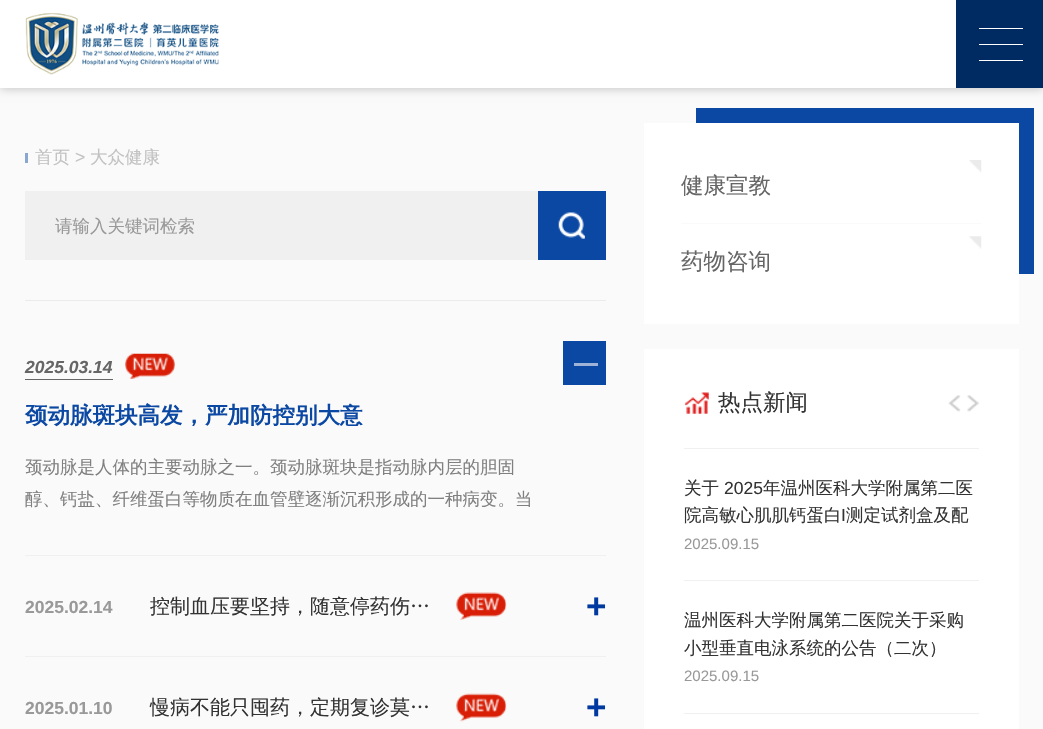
#include "include/core/SkBlurTypes.h"
#include "include/core/SkCanvas.h"
#include "include/core/SkData.h"
#include "include/core/SkFont.h"
#include "include/core/SkFontMgr.h"
#include "include/core/SkImage.h"
#include "include/core/SkMaskFilter.h"
#include "include/core/SkPaint.h"
#include "include/core/SkPathBuilder.h"
#include "include/core/SkTextBlob.h"
#include "include/effects/SkDashPathEffect.h"
#include "include/effects/SkGradientShader.h"
#include "include/utils/SkParsePath.h"

extern sk_sp<SkFontMgr> fontMgr;

static SkFont font(const char* family, int weight, float size, bool italic = false) {
    SkFontStyle style(weight, SkFontStyle::kNormal_Width,
        italic ? SkFontStyle::kItalic_Slant : SkFontStyle::kUpright_Slant);
    SkFont result(fontMgr->matchFamilyStyle(family, style), size);
    result.setSubpixel(true);
    return result;
}

static void drawLabel(SkCanvas* canvas, const char* s, float x, float y, const SkFont& font, SkColor color) {
    SkPaint ink(SkColor4f::FromColor(color));
    ink.setAntiAlias(true);
    canvas->drawString(s, x, y, font, ink);
}

static void fillRect(SkCanvas* canvas, float x, float y, float w, float h, SkColor color) {
    SkPaint ink(SkColor4f::FromColor(color));
    ink.setAntiAlias(true);
    canvas->drawRect(SkRect::MakeXYWH(x, y, w, h), ink);
}

static void drawPhoto(SkCanvas* canvas, const char* path, float x, float y, float w, float h) {
    auto image = SkImages::DeferredFromEncodedData(SkData::MakeFromFileName(path));
    canvas->drawImageRect(image, SkRect::MakeXYWH(x, y, w, h), SkSamplingOptions());
}

void draw(SkCanvas* canvas) {
    SkPaint paint;
    paint.setAntiAlias(true);
    canvas->clear(0xFFFAFAFA);
    paint.setColor(0x40000000);
    paint.setMaskFilter(SkMaskFilter::MakeBlur(kNormal_SkBlurStyle, 5));
    canvas->drawRect(SkRect::MakeXYWH(0, 0, 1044, 88), paint);
    paint.setMaskFilter(nullptr);
    fillRect(canvas, 0, 0, 956, 88, 0xFFFFFFFF);
    drawPhoto(canvas, "assets/img1.png", 25, 13, 194, 62);
    fillRect(canvas, 956, 0, 87, 88, 0xFF002B62);
    fillRect(canvas, 979, 44, 44, 1, 0xFFFFFFFF);
    fillRect(canvas, 979, 28, 44, 1, 0xFFFFFFFF);
    fillRect(canvas, 979, 60, 44, 1, 0xFFFFFFFF);
    fillRect(canvas, 25, 153, 3, 10, 0xFF8AA7D1);
    SkFont font1 = font("WenQuanYi Zen Hei", 500, 17.5f);
    drawLabel(canvas, "首页", 35, 163, font1, 0xFFC2C2C2);
    SkFont font2 = font("Liberation Sans", 400, 17.5f);
    drawLabel(canvas, ">", 75, 163, font2, 0xFFC2C2C2);
    drawLabel(canvas, "大众健康", 90, 163, font1, 0xFFC2C2C2);
    fillRect(canvas, 25, 191, 513, 69, 0xFFF0F0F0);
    drawLabel(canvas, "请输入关键词检索", 55, 232, font1, 0xFF999999);
    fillRect(canvas, 538, 191, 68, 69, 0xFF0B48A3);
    drawPhoto(canvas, "assets/img2.png", 558, 212, 27, 27);
    fillRect(canvas, 25, 300, 581, 1, 0xFFEBEBEB);
    fillRect(canvas, 25, 555, 581, 1, 0xFFF0F0F0);
    fillRect(canvas, 25, 379, 88, 1, 0xFF666666);
    SkFont font3 = font("Liberation Sans", 700, 17.5f, true);
    drawLabel(canvas, "2025.03.14", 25, 373, font3, 0xFF666666);
    drawPhoto(canvas, "assets/img3.png", 125, 353, 50, 26);
    SkFont font4 = font("WenQuanYi Zen Hei", 700, 22.5f);
    drawLabel(canvas, "颈动脉斑块高发，严加防控别大意", 25, 423, font4, 0xFF0B48A3);
    drawLabel(canvas, "颈动脉是人体的主要动脉之一。颈动脉斑块是指动脉内层的胆固", 25, 473, font1, 0xFF808080);
    drawLabel(canvas, "醇、钙盐、纤维蛋白等物质在血管壁逐渐沉积形成的一种病变。当", 25, 505, font1, 0xFF808080);
    fillRect(canvas, 563, 341, 43, 44, 0xFF0B48A3);
    fillRect(canvas, 574, 363, 24, 3, 0xFF9EB1D6);
    fillRect(canvas, 25, 656, 581, 1, 0xFFF0F0F0);
    SkFont font5 = font("Liberation Sans", 700, 17.5f);
    drawLabel(canvas, "2025.02.14", 25, 613, font5, 0xFF999999);
    SkFont font6 = font("WenQuanYi Zen Hei", 500, 20);
    drawLabel(canvas, "控制血压要坚持，随意停药伤…", 150, 613, font6, 0xFF333333);
    drawPhoto(canvas, "assets/img4.png", 456, 592, 51, 28);
    SkFont font7 = font("Liberation Sans", 700, 35);
    drawLabel(canvas, "+", 586, 618, font7, 0xFF003AA0);
    drawLabel(canvas, "2025.01.10", 25, 714, font5, 0xFF999999);
    drawLabel(canvas, "慢病不能只囤药，定期复诊莫…", 150, 714, font6, 0xFF333333);
    drawPhoto(canvas, "assets/img5.png", 456, 693, 51, 29);
    drawLabel(canvas, "+", 586, 719, font7, 0xFF003AA0);
    fillRect(canvas, 644, 123, 375, 201, 0xFFFFFFFF);
    fillRect(canvas, 696, 108, 338, 15, 0xFF0B48A3);
    fillRect(canvas, 681, 223, 300, 1, 0xFFFAFAFA);
    drawPhoto(canvas, "assets/img6.png", 969, 160, 13, 13);
    SkFont font8 = font("WenQuanYi Zen Hei", 500, 22.5f);
    drawLabel(canvas, "健康宣教", 681, 193, font8, 0xFF666666);
    drawPhoto(canvas, "assets/img7.png", 969, 236, 13, 13);
    drawLabel(canvas, "药物咨询", 681, 269, font8, 0xFF666666);
    fillRect(canvas, 1019, 123, 15, 151, 0xFF0B48A3);
    fillRect(canvas, 644, 349, 375, 380, 0xFFFFFFFF);
    drawPhoto(canvas, "assets/img8.png", 684, 392, 25, 22);
    drawLabel(canvas, "热点新闻", 718, 410, font8, 0xFF333333);
    drawPhoto(canvas, "assets/img9.png", 948, 395, 13, 17);
    drawPhoto(canvas, "assets/img10.png", 967, 395, 12, 17);
    fillRect(canvas, 684, 448, 295, 1, 0xFFF0F0F0);
    drawLabel(canvas, "关于", 684, 494, font1, 0xFF333333);
    drawLabel(canvas, "2025", 724, 494, font2, 0xFF333333);
    drawLabel(canvas, "年温州医科大学附属第二医", 763, 494, font1, 0xFF333333);
    drawLabel(canvas, "院高敏心肌肌钙蛋白", 684, 521, font1, 0xFF333333);
    drawLabel(canvas, "I", 841, 521, font2, 0xFF333333);
    drawLabel(canvas, "测定试剂盒及配", 846, 521, font1, 0xFF333333);
    SkFont font9 = font("Liberation Sans", 400, 15);
    drawLabel(canvas, "2025.09.15", 684, 549, font9, 0xFF999999);
    fillRect(canvas, 684, 580, 295, 1, 0xFFF0F0F0);
    drawLabel(canvas, "温州医科大学附属第二医院关于采购", 684, 626, font1, 0xFF333333);
    drawLabel(canvas, "小型垂直电泳系统的公告（二次）", 684, 654, font1, 0xFF333333);
    drawLabel(canvas, "2025.09.15", 684, 681, font9, 0xFF999999);
    fillRect(canvas, 684, 713, 295, 1, 0xFFF0F0F0);
}
